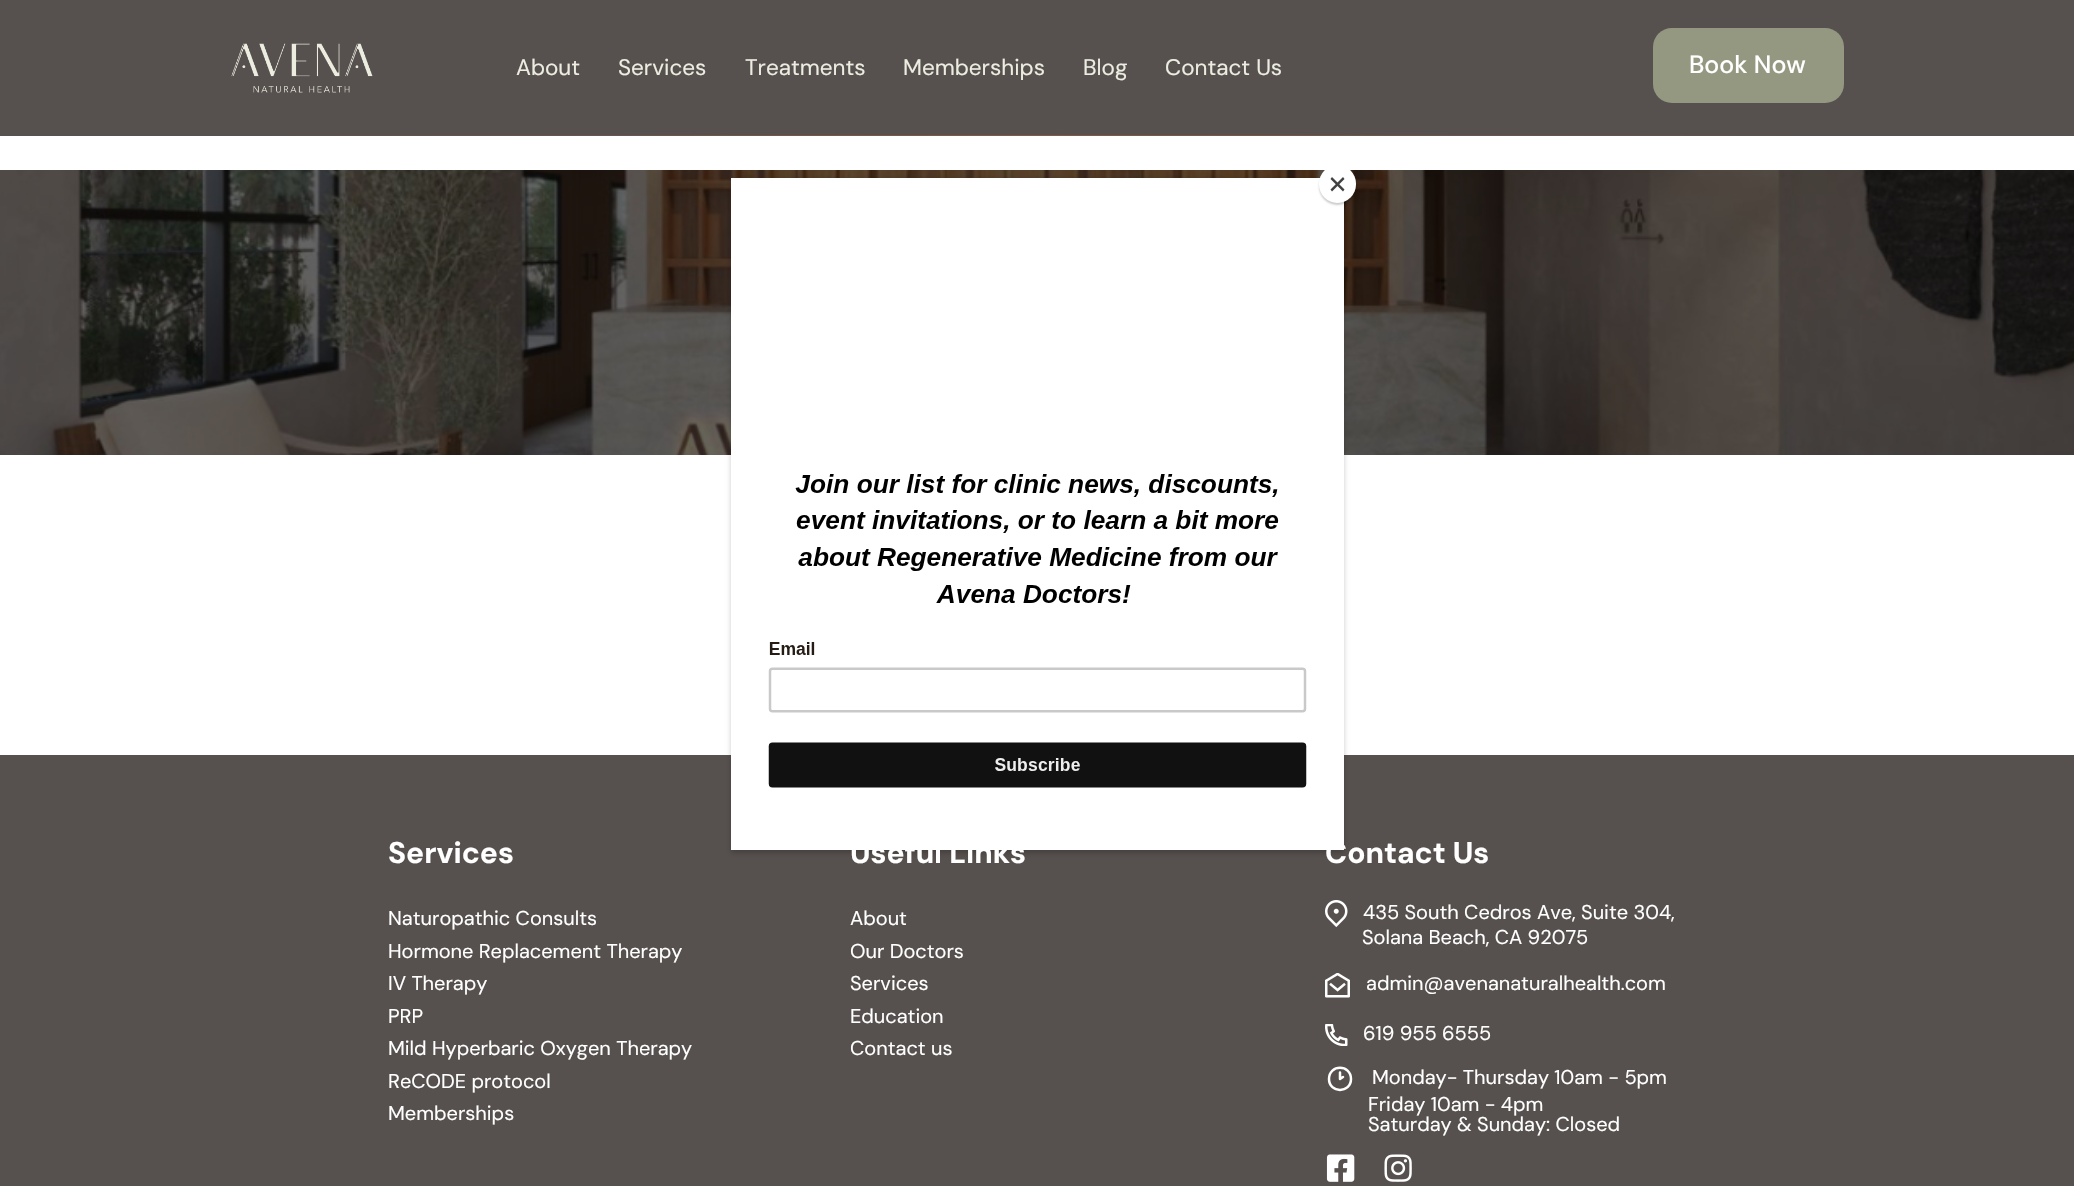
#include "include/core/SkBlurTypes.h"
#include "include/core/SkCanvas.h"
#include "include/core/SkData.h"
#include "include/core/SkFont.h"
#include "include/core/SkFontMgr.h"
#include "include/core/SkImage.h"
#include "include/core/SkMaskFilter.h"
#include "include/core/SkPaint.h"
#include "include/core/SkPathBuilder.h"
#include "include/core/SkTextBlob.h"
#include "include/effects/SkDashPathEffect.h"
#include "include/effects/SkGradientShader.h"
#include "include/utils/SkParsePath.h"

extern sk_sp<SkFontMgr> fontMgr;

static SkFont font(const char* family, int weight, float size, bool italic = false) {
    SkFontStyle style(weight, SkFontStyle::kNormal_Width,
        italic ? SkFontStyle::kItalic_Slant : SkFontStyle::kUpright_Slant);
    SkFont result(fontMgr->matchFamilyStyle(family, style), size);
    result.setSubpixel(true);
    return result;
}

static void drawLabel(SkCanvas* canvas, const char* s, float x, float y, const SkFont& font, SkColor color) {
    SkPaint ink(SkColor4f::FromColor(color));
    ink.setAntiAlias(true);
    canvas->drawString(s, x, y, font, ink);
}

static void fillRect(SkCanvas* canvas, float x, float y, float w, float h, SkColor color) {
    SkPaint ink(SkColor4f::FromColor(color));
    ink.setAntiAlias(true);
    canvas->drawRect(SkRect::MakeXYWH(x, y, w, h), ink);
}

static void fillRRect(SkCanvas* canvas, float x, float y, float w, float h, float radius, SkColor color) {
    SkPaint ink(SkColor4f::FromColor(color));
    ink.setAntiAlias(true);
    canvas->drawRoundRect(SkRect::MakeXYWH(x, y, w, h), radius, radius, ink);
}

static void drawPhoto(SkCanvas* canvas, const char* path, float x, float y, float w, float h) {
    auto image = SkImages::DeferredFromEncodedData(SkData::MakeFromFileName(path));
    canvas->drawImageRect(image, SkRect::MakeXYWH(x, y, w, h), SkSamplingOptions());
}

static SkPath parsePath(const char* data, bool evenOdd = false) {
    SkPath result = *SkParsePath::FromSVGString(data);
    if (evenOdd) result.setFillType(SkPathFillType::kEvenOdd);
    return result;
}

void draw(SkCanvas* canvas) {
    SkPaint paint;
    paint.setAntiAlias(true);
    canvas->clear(0xFFFFFFFF);
    fillRect(canvas, 0, 0, 2074, 136, 0xFF56514E);
    drawPhoto(canvas, "assets/img1.png", 231, 43, 142, 50);
    SkFont font1 = font("DM Sans", 400, 22.5f);
    drawLabel(canvas, "About", 516, 75, font1, 0xFFECECE1);
    drawLabel(canvas, "Services", 618, 75, font1, 0xFFECECE1);
    drawLabel(canvas, "Treatments", 745, 75, font1, 0xFFECECE1);
    drawLabel(canvas, "Memberships", 903, 75, font1, 0xFFECECE1);
    drawLabel(canvas, "Blog", 1083, 75, font1, 0xFFECECE1);
    drawLabel(canvas, "Contact Us", 1165, 75, font1, 0xFFECECE1);
    fillRRect(canvas, 1653, 28, 191, 75, 19, 0xFF949881);
    SkFont font2 = font("DM Sans", 500, 25);
    drawLabel(canvas, "Book Now", 1689, 73, font2, 0xFFFFFFFF);
    {
        const SkColor colors[] = {0xFF56514E, 0xFF865745, 0xFF56514E};
        const float stops[] = {0, 0.5f, 1};
        const SkPoint ends[] = {{231, 136}, {1844, 136}};
        paint.setShader(SkGradientShader::MakeLinear(ends, colors, stops, 3, SkTileMode::kClamp));
        paint.setAlpha(255);
    }
    canvas->drawRect(SkRect::MakeXYWH(273, 135, 1529, 1), paint);
    drawPhoto(canvas, "assets/img3.png", 0, 170, 2074, 285);
    fillRect(canvas, 0, 755, 2074, 431, 0xFF56514E);
    paint.setShader(nullptr);
    paint.setColor(0x33000000);
    paint.setMaskFilter(SkMaskFilter::MakeBlur(kNormal_SkBlurStyle, 2.5f));
    canvas->drawRect(SkRect::MakeXYWH(731, 180, 613, 673), paint);
    paint.setMaskFilter(nullptr);
    SkFont font3 = font("DM Sans", 700, 30);
    drawLabel(canvas, "Useful Links", 850, 863, font3, 0xFFFFFFFF);
    drawLabel(canvas, "Contact Us", 1325, 863, font3, 0xFFFFFFFF);
    drawPhoto(canvas, "assets/img2.png", 731, 178, 613, 672);
    paint.setMaskFilter(SkMaskFilter::MakeBlur(kNormal_SkBlurStyle, 1));
    canvas->drawRoundRect(SkRect::MakeXYWH(1319, 168, 37, 37), 18.5f, 18.5f, paint);
    paint.setMaskFilter(nullptr);
    fillRRect(canvas, 1319, 165, 37, 38, 18.5f, 0xFFFFFFFF);
    paint.setColor(0xFF414141);
    canvas->drawPath(parsePath("M1343 177L1344.5 179L1332 191.5L1330.5 189.5Z"), paint);
    canvas->drawPath(parsePath("M1330.5 179L1332 177L1344.5 189.5L1343 191.5Z"), paint);
    drawLabel(canvas, "Services", 388, 863, font3, 0xFFFFFFFF);
    SkFont font4 = font("DM Sans", 400, 20);
    drawLabel(canvas, "Naturopathic Consults", 388, 925, font4, 0xFFFFFFFF);
    drawLabel(canvas, "Hormone Replacement Therapy", 388, 958, font4, 0xFFFFFFFF);
    drawLabel(canvas, "IV Therapy", 388, 990, font4, 0xFFFFFFFF);
    drawLabel(canvas, "PRP", 388, 1023, font4, 0xFFFFFFFF);
    drawLabel(canvas, "Mild Hyperbaric Oxygen Therapy", 388, 1055, font4, 0xFFFFFFFF);
    drawLabel(canvas, "ReCODE protocol", 388, 1088, font4, 0xFFFFFFFF);
    drawLabel(canvas, "Memberships", 388, 1120, font4, 0xFFFFFFFF);
    drawLabel(canvas, "About", 850, 925, font4, 0xFFFFFFFF);
    drawLabel(canvas, "Our Doctors", 850, 958, font4, 0xFFFFFFFF);
    drawLabel(canvas, "Services", 850, 990, font4, 0xFFFFFFFF);
    drawLabel(canvas, "Education", 850, 1023, font4, 0xFFFFFFFF);
    drawLabel(canvas, "Contact us", 850, 1055, font4, 0xFFFFFFFF);
    drawPhoto(canvas, "assets/img4.png", 1325, 900, 23, 28);
    drawLabel(canvas, "435 South Cedros Ave, Suite 304,", 1363, 919, font4, 0xFFFFFFFF);
    drawLabel(canvas, "Solana Beach, CA 92075", 1362, 944, font4, 0xFFFFFFFF);
    drawPhoto(canvas, "assets/img5.png", 1325, 973, 25, 25);
    drawLabel(canvas, "admin@avenanaturalhealth.com", 1366, 990, font4, 0xFFFFFFFF);
    drawPhoto(canvas, "assets/img6.png", 1325, 1024, 23, 22);
    drawLabel(canvas, "619 955 6555", 1363, 1040, font4, 0xFFFFFFFF);
    paint.setStroke(true);
    paint.setStrokeWidth(2.5f);
    paint.setStrokeCap(SkPaint::kRound_Cap);
    paint.setStrokeJoin(SkPaint::kRound_Join);
    paint.setColor(0xFFFFFFFF);
    canvas->drawPath(parsePath("M1340 1072.5V1079L1343 1077M1351 1079C1351 1093.5 1329 1093.5 1329 1079C1329 1064 1351 1064 1351 1079Z"), paint);
    drawLabel(canvas, "Monday- Thursday 10am - 5pm", 1372, 1084, font4, 0xFFFFFFFF);
    drawLabel(canvas, "Friday 10am - 4pm", 1368, 1111, font4, 0xFFFFFFFF);
    drawLabel(canvas, "Saturday & Sunday: Closed", 1368, 1131, font4, 0xFFFFFFFF);
    drawPhoto(canvas, "assets/img7.png", 1326, 1154, 29, 28);
    drawPhoto(canvas, "assets/img8.png", 1384, 1154, 28, 28);
}
